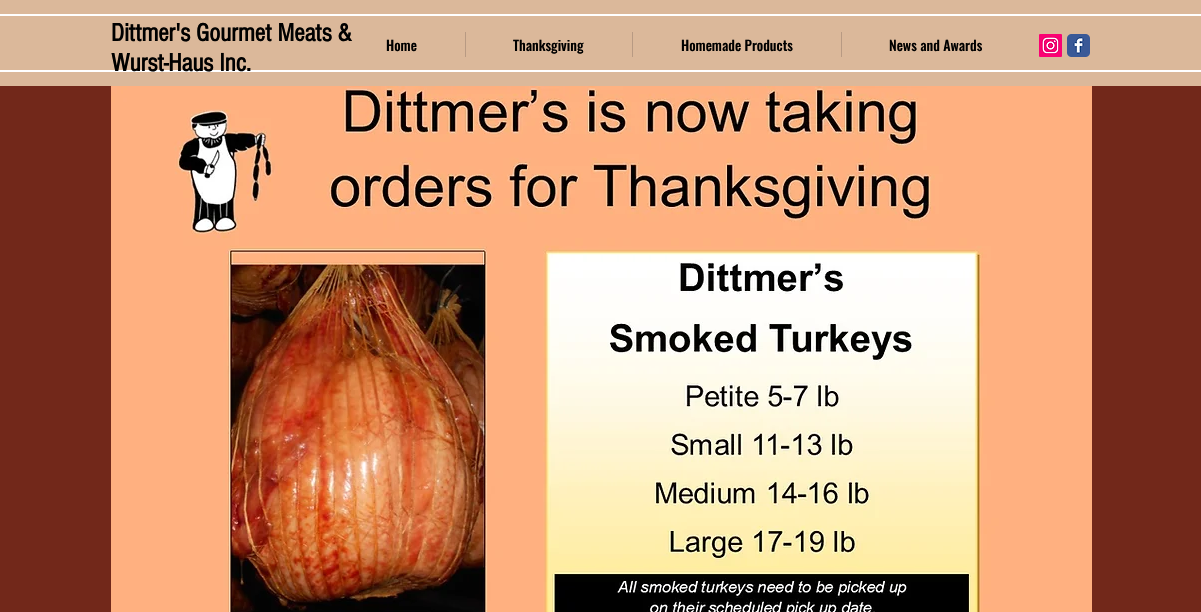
#include "include/core/SkBlurTypes.h"
#include "include/core/SkCanvas.h"
#include "include/core/SkData.h"
#include "include/core/SkFont.h"
#include "include/core/SkFontMgr.h"
#include "include/core/SkImage.h"
#include "include/core/SkMaskFilter.h"
#include "include/core/SkPaint.h"
#include "include/core/SkPathBuilder.h"
#include "include/core/SkTextBlob.h"
#include "include/effects/SkDashPathEffect.h"
#include "include/effects/SkGradientShader.h"
#include "include/utils/SkParsePath.h"

extern sk_sp<SkFontMgr> fontMgr;

static SkFont font(const char* family, int weight, float size, bool italic = false) {
    SkFontStyle style(weight, SkFontStyle::kNormal_Width,
        italic ? SkFontStyle::kItalic_Slant : SkFontStyle::kUpright_Slant);
    SkFont result(fontMgr->matchFamilyStyle(family, style), size);
    result.setSubpixel(true);
    return result;
}

static void drawLabel(SkCanvas* canvas, const char* s, float x, float y, const SkFont& font, SkColor color) {
    SkPaint ink(SkColor4f::FromColor(color));
    ink.setAntiAlias(true);
    canvas->drawString(s, x, y, font, ink);
}

static void fillRect(SkCanvas* canvas, float x, float y, float w, float h, SkColor color) {
    SkPaint ink(SkColor4f::FromColor(color));
    ink.setAntiAlias(true);
    canvas->drawRect(SkRect::MakeXYWH(x, y, w, h), ink);
}

static void drawPhoto(SkCanvas* canvas, const char* path, float x, float y, float w, float h) {
    auto image = SkImages::DeferredFromEncodedData(SkData::MakeFromFileName(path));
    canvas->drawImageRect(image, SkRect::MakeXYWH(x, y, w, h), SkSamplingOptions());
}

void draw(SkCanvas* canvas) {
    SkPaint paint;
    paint.setAntiAlias(true);
    canvas->clear(0xFF72281A);
    fillRect(canvas, 0, 0, 1201, 86, 0xFFDBB89A);
    fillRect(canvas, 0, 14, 1201, 2, 0xFFFFFFFF);
    fillRect(canvas, 0, 70, 1201, 2, 0xFFFFFFFF);
    SkFont font1 = font("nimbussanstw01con", 700, 26);
    drawLabel(canvas, "Dittmer's Gourmet Meats &", 111, 41, font1, 0xFF000000);
    drawLabel(canvas, "Wurst-Haus Inc.", 111, 71, font1, 0xFF000000);
    SkFont font2 = font("Oswald", 500, 14);
    drawLabel(canvas, "Home", 386, 51, font2, 0xFF000000);
    fillRect(canvas, 465, 32, 1, 25, 0xFFB89A83);
    drawLabel(canvas, "Thanksgiving", 513, 51, font2, 0xFF000000);
    fillRect(canvas, 632, 32, 1, 25, 0xFFB89A83);
    drawLabel(canvas, "Homemade Products", 681, 51, font2, 0xFF000000);
    fillRect(canvas, 841, 32, 1, 25, 0xFFB89A83);
    drawLabel(canvas, "News and Awards", 889, 51, font2, 0xFF000000);
    drawPhoto(canvas, "assets/img1.png", 1039, 34, 23, 23);
    drawPhoto(canvas, "assets/img2.png", 1067, 34, 23, 23);
    drawPhoto(canvas, "assets/img3.png", 111, 86, 981, 526);
}
